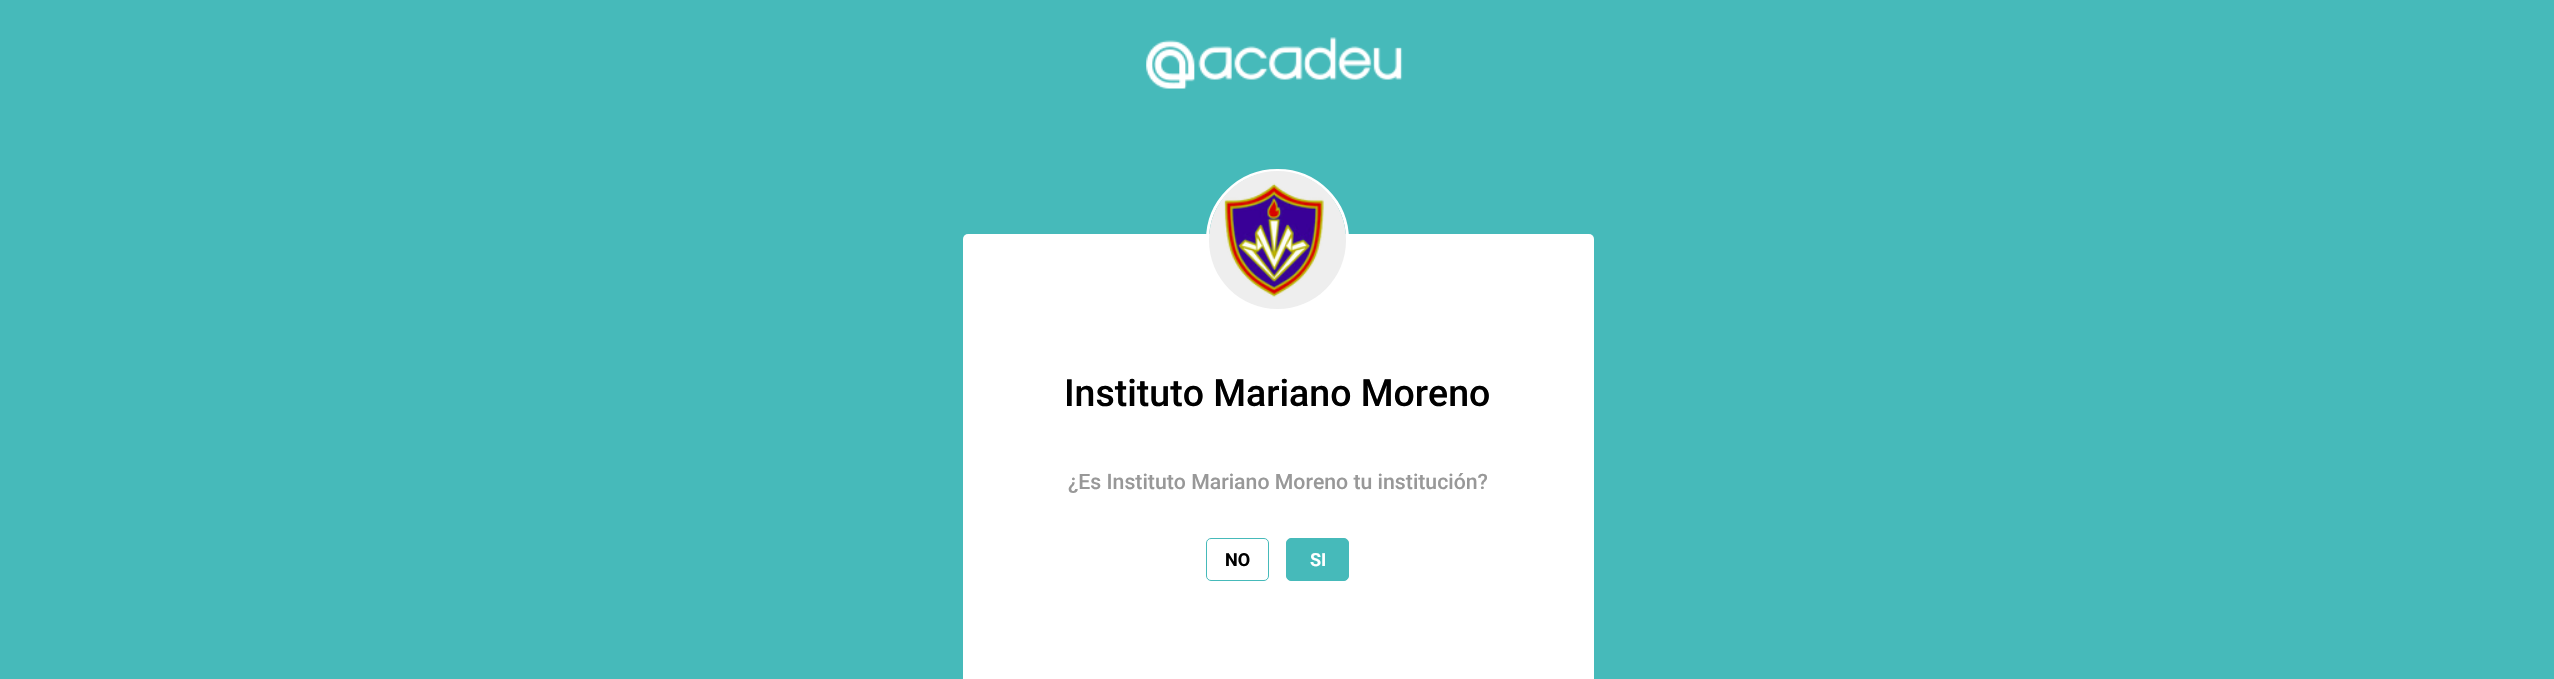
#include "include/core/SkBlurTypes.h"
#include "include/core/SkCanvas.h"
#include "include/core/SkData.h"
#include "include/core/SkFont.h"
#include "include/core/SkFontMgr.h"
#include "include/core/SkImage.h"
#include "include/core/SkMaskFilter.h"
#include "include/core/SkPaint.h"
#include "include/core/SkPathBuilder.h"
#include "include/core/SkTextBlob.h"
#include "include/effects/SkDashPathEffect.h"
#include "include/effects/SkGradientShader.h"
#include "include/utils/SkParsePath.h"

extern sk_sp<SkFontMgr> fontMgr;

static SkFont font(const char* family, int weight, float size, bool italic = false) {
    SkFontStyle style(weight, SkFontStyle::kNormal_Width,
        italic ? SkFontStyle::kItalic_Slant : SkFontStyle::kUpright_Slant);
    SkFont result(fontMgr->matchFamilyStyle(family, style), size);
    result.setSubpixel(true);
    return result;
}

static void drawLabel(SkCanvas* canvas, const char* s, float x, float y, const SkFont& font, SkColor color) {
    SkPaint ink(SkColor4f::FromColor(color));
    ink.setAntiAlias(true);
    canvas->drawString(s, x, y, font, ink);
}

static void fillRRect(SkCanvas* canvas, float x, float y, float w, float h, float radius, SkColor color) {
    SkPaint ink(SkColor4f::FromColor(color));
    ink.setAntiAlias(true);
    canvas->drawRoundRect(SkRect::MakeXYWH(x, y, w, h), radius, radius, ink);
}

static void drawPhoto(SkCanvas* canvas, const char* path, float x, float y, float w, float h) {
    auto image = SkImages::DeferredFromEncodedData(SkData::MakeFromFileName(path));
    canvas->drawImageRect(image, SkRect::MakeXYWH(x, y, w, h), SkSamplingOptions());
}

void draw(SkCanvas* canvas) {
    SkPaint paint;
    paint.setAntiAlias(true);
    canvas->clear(0xFF46BABA);
    drawPhoto(canvas, "assets/img1.png", 1146, 37, 257, 52);
    fillRRect(canvas, 963, 234, 631, 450, 5, 0xFFFFFFFF);
    paint.setStroke(true);
    paint.setStrokeWidth(3);
    paint.setColor(0xFFFFFFFF);
    canvas->drawRoundRect(SkRect::MakeXYWH(1207.5f, 170.5f, 140, 139), 69.5f, 69.5f, paint);
    fillRRect(canvas, 1209, 171, 137, 138, 68.5f, 0xFFEEEEEE);
    drawPhoto(canvas, "assets/img2.png", 1224, 183, 100, 114);
    SkFont font1 = font("Roboto", 500, 37.5f);
    drawLabel(canvas, "Instituto Mariano Moreno", 1064, 406, font1, 0xFF000000);
    SkFont font2 = font("Roboto", 500, 21.25f);
    drawLabel(canvas, "¿Es Instituto Mariano Moreno tu institución?", 1068, 489, font2, 0xFF989898);
    paint.setStrokeWidth(1);
    paint.setColor(0xFF46BABA);
    canvas->drawRoundRect(SkRect::MakeXYWH(1206.5f, 538.5f, 62, 42), 4.5f, 4.5f, paint);
    SkFont font3 = font("Roboto", 700, 18);
    drawLabel(canvas, "NO", 1225, 566, font3, 0xFF000000);
    paint.setStroke(false);
    canvas->drawRoundRect(SkRect::MakeXYWH(1286.5f, 538.5f, 62, 42), 4.5f, 4.5f, paint);
    paint.setStroke(true);
    canvas->drawRoundRect(SkRect::MakeXYWH(1286.5f, 538.5f, 62, 42), 4.5f, 4.5f, paint);
    drawLabel(canvas, "SI", 1310, 566, font3, 0xFFFFFFFF);
}
